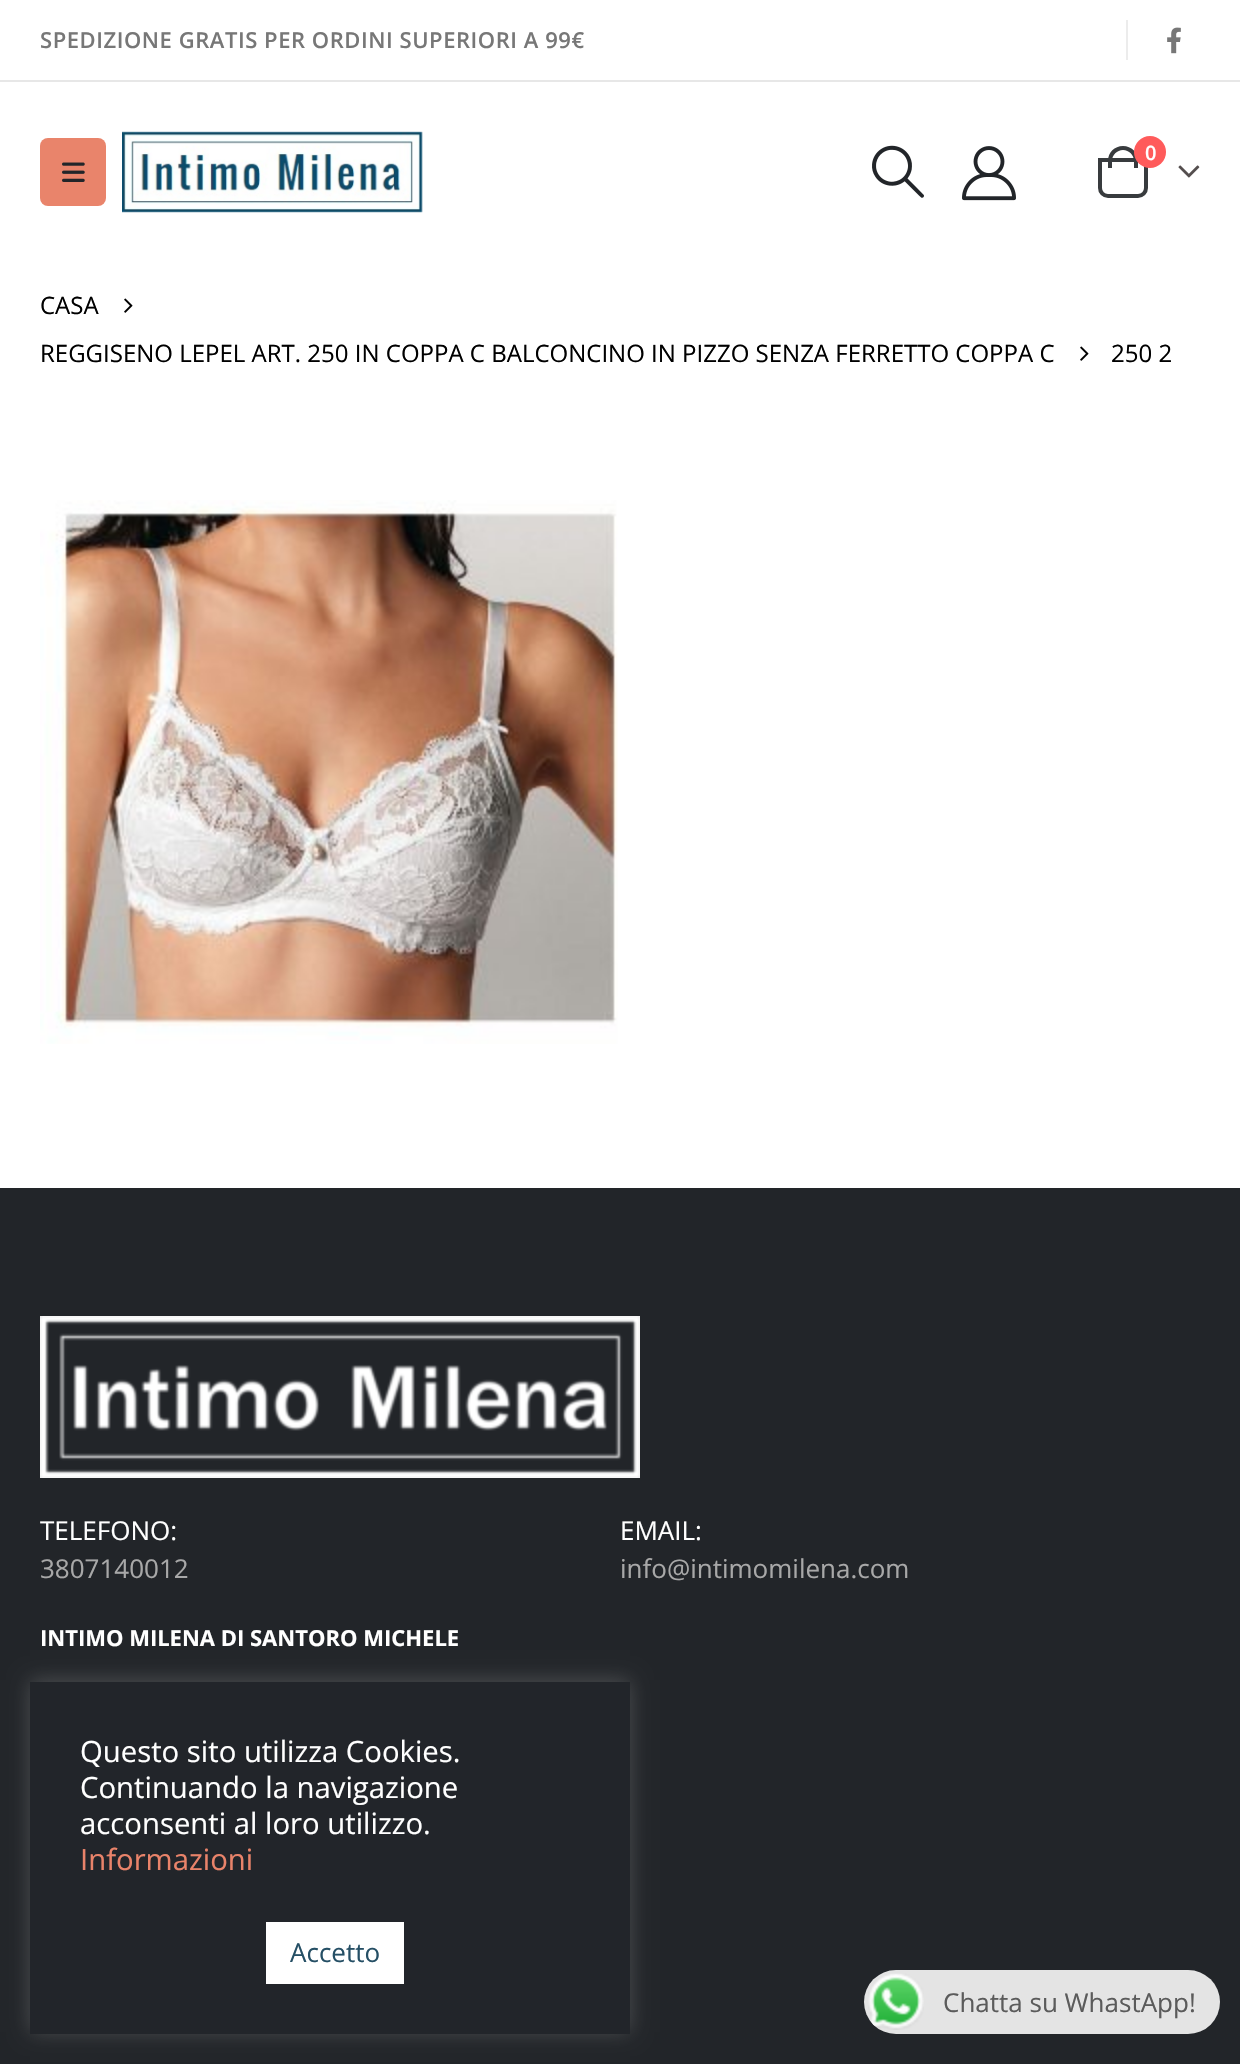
#include "include/core/SkBlurTypes.h"
#include "include/core/SkCanvas.h"
#include "include/core/SkData.h"
#include "include/core/SkFont.h"
#include "include/core/SkFontMgr.h"
#include "include/core/SkImage.h"
#include "include/core/SkMaskFilter.h"
#include "include/core/SkPaint.h"
#include "include/core/SkPathBuilder.h"
#include "include/core/SkTextBlob.h"
#include "include/effects/SkDashPathEffect.h"
#include "include/effects/SkGradientShader.h"
#include "include/utils/SkParsePath.h"

extern sk_sp<SkFontMgr> fontMgr;

static SkFont font(const char* family, int weight, float size, bool italic = false) {
    SkFontStyle style(weight, SkFontStyle::kNormal_Width,
        italic ? SkFontStyle::kItalic_Slant : SkFontStyle::kUpright_Slant);
    SkFont result(fontMgr->matchFamilyStyle(family, style), size);
    result.setSubpixel(true);
    return result;
}

static void drawLabel(SkCanvas* canvas, const char* s, float x, float y, const SkFont& font, SkColor color) {
    SkPaint ink(SkColor4f::FromColor(color));
    ink.setAntiAlias(true);
    canvas->drawString(s, x, y, font, ink);
}

static void drawTracked(SkCanvas* canvas, const char* s, float x, float y, const SkFont& font, const SkPaint& ink, float letter, float word) {
    std::vector<SkGlyphID> glyphs(font.countText(s, strlen(s), SkTextEncoding::kUTF8));
    std::vector<float> xs(glyphs.size());
    font.textToGlyphs(s, strlen(s), SkTextEncoding::kUTF8, glyphs);
    font.getXPos(glyphs, xs, x);
    float extra = 0;
    for (size_t i = 0; i < glyphs.size(); i++) {
        xs[i] += extra;
        extra += letter + word * (glyphs[i] == font.unicharToGlyph(' '));
    }
    canvas->drawTextBlob(SkTextBlob::MakeFromPosHGlyphs(glyphs, xs, y, font), 0, 0, ink);
}

static void fillRect(SkCanvas* canvas, float x, float y, float w, float h, SkColor color) {
    SkPaint ink(SkColor4f::FromColor(color));
    ink.setAntiAlias(true);
    canvas->drawRect(SkRect::MakeXYWH(x, y, w, h), ink);
}

static void fillRRect(SkCanvas* canvas, float x, float y, float w, float h, float radius, SkColor color) {
    SkPaint ink(SkColor4f::FromColor(color));
    ink.setAntiAlias(true);
    canvas->drawRoundRect(SkRect::MakeXYWH(x, y, w, h), radius, radius, ink);
}

static void drawPhoto(SkCanvas* canvas, const char* path, float x, float y, float w, float h) {
    auto image = SkImages::DeferredFromEncodedData(SkData::MakeFromFileName(path));
    canvas->drawImageRect(image, SkRect::MakeXYWH(x, y, w, h), SkSamplingOptions());
}

static SkPath parsePath(const char* data, bool evenOdd = false) {
    SkPath result = *SkParsePath::FromSVGString(data);
    if (evenOdd) result.setFillType(SkPathFillType::kEvenOdd);
    return result;
}

void draw(SkCanvas* canvas) {
    SkPaint paint;
    paint.setAntiAlias(true);
    canvas->clear(0xFFFFFFFF);
    fillRect(canvas, 0, 80, 1240, 2, 0xFFE7E7E7);
    SkFont font1 = font("Open Sans", 600, 22);
    paint.setColor(0xFF777777);
    drawTracked(canvas, "SPEDIZIONE GRATIS PER ORDINI SUPERIORI A 99€", 40, 48, font1, paint, 0.55f, 0);
    fillRect(canvas, 1126, 20, 2, 40, 0xFFECECEC);
    drawPhoto(canvas, "assets/img1.png", 1167, 27, 14, 27);
    fillRRect(canvas, 40, 138, 66, 68, 8, 0xFFE9846B);
    drawPhoto(canvas, "assets/img2.png", 62, 162, 23, 20);
    drawPhoto(canvas, "assets/img3.png", 122, 131, 301, 82);
    drawPhoto(canvas, "assets/img4.png", 872, 145, 52, 53);
    drawPhoto(canvas, "assets/img5.png", 962, 146, 54, 55);
    paint.setStroke(true);
    paint.setStrokeWidth(4);
    paint.setColor(0xFF383B3E);
    canvas->drawPath(parsePath("M1100 160H1146V188C1146 192.5 1142.5 196 1138 196H1108C1103.5 196 1100 192.5 1100 188Z"), paint);
    paint.setStroke(false);
    canvas->drawPath(parsePath("M1123 146C1131.5 146 1138 152.5 1138 161V168H1108V161C1108 152.5 1114.5 146 1123 146ZM1123 150C1129 150 1134 155 1134 161V168H1112V161C1112 155 1117 150 1123 150Z", true), paint);
    paint.setColor(0xFFFF5B5B);
    canvas->drawCircle(1150, 152, 16, paint);
    SkFont font2 = font("Open Sans", 600, 20);
    drawLabel(canvas, "0", 1145, 160, font2, 0xFFFFFFFF);
    drawPhoto(canvas, "assets/img6.png", 1178, 165, 22, 13);
    SkFont font3 = font("Open Sans", 400, 24);
    drawLabel(canvas, "CASA", 40, 314, font3, 0xFF000000);
    drawPhoto(canvas, "assets/img7.png", 124, 298, 9, 15);
    drawLabel(canvas, "REGGISENO LEPEL ART. 250 IN COPPA C BALCONCINO IN PIZZO SENZA FERRETTO COPPA C", 40, 362, font3, 0xFF000000);
    drawPhoto(canvas, "assets/img7.png", 1080, 346, 9, 15);
    drawLabel(canvas, "250 2", 1111, 362, font3, 0xFF000000);
    drawPhoto(canvas, "assets/img8.png", 40, 500, 578, 544);
    fillRect(canvas, 0, 1188, 1240, 876, 0xFF222529);
    drawPhoto(canvas, "assets/img9.png", 40, 1316, 600, 162);
    SkFont font4 = font("Open Sans", 400, 26);
    drawLabel(canvas, "TELEFONO:", 40, 1540, font4, 0xFFFFFFFF);
    drawLabel(canvas, "3807140012", 40, 1578, font4, 0xFFA8A8A8);
    drawLabel(canvas, "EMAIL:", 620, 1540, font4, 0xFFFFFFFF);
    drawLabel(canvas, "info@intimomilena.com", 620, 1578, font4, 0xFFA8A8A8);
    SkFont font5 = font("Open Sans", 700, 22);
    drawLabel(canvas, "INTIMO MILENA DI SANTORO MICHELE", 40, 1646, font5, 0xFFFFFFFF);
    paint.setColor(0x4DACABAB);
    paint.setMaskFilter(SkMaskFilter::MakeBlur(kNormal_SkBlurStyle, 10));
    canvas->drawRect(SkRect::MakeXYWH(30, 1680, 600, 352), paint);
    paint.setMaskFilter(nullptr);
    fillRect(canvas, 30, 1682, 600, 352, 0xFF22252A);
    SkFont font6 = font("Open Sans", 400, 29.3f);
    drawLabel(canvas, "Questo sito utilizza Cookies.", 80, 1762, font6, 0xFFFFFFFF);
    drawLabel(canvas, "Continuando la navigazione", 80, 1798, font6, 0xFFFFFFFF);
    drawLabel(canvas, "acconsenti al loro utilizzo.", 80, 1834, font6, 0xFFFFFFFF);
    drawLabel(canvas, "Informazioni", 80, 1870, font6, 0xFFE9836A);
    fillRect(canvas, 266, 1922, 138, 62, 0xFFFFFFFF);
    drawLabel(canvas, "Accetto", 290, 1962, font4, 0xFF254F65);
    fillRRect(canvas, 864, 1970, 356, 64, 32, 0xFFE4E4E4);
    drawPhoto(canvas, "assets/img10.png", 868, 1973, 56, 57);
    drawLabel(canvas, "Chatta su WhastApp!", 943, 2012, font4, 0xFF5B5B5B);
}
